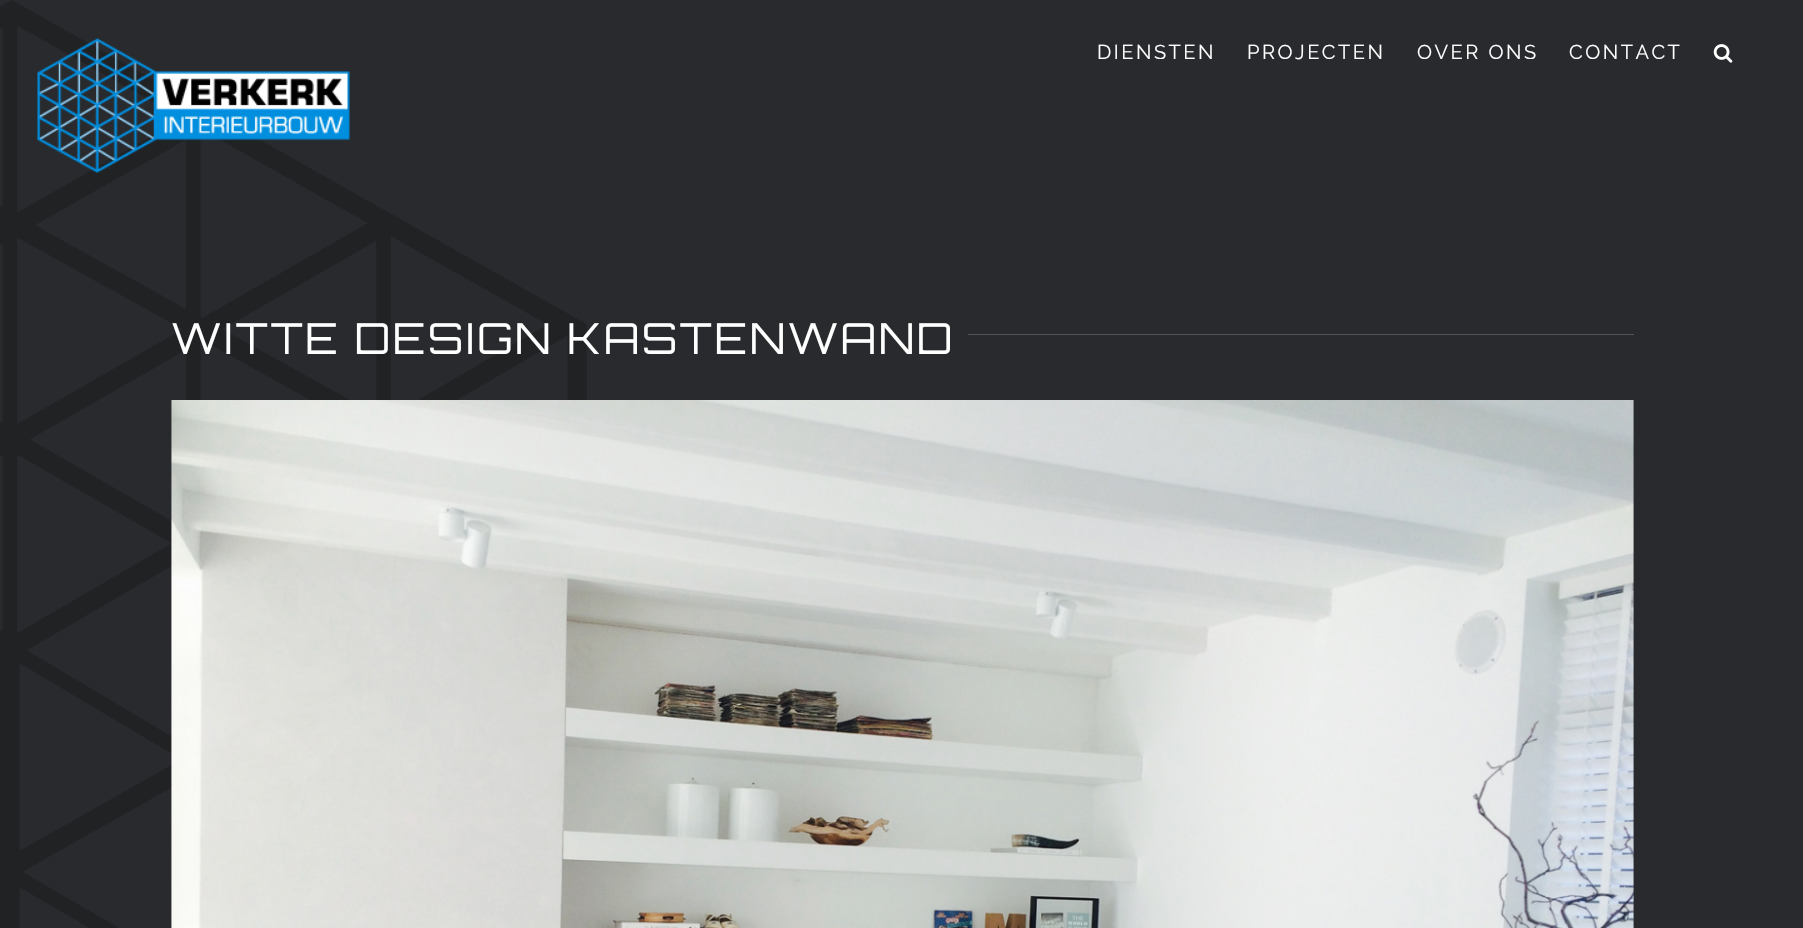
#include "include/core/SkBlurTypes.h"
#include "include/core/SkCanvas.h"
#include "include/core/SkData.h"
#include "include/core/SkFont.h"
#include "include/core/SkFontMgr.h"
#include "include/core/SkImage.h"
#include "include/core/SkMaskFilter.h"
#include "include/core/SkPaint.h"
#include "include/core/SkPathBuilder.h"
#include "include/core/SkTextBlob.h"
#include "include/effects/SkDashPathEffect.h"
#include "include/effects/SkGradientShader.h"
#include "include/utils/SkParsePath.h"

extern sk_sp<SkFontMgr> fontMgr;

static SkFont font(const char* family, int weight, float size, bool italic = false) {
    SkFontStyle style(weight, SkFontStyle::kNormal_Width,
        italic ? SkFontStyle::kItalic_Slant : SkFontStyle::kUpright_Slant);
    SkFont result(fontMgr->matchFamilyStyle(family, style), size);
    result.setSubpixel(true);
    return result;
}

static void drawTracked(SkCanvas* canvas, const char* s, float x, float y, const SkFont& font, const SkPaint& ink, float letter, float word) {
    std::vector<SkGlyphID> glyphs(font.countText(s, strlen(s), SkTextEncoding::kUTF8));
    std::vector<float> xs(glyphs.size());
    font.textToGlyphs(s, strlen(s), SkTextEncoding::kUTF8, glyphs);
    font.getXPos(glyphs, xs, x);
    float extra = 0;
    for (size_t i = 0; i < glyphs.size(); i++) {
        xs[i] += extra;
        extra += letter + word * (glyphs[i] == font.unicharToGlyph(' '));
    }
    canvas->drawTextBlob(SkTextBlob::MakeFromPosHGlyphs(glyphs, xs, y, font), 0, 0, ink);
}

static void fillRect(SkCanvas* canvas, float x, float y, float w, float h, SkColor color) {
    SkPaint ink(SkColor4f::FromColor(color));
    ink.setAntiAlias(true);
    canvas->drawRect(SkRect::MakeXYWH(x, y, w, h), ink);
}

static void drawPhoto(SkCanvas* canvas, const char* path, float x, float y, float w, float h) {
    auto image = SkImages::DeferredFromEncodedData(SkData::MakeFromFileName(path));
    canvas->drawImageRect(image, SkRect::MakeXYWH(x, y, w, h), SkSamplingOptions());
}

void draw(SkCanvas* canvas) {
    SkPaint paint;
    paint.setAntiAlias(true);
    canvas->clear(0xFF282A2D);
    drawPhoto(canvas, "assets/img3.png", 0, 0, 587, 928);
    drawPhoto(canvas, "assets/img1.png", 37, 38, 313, 135);
    SkFont font1 = font("Raleway", 400, 20);
    paint.setColor(0xFFFFFFFF);
    drawTracked(canvas, "DIENSTEN", 1097, 59, font1, paint, 2.5f, 0);
    drawTracked(canvas, "PROJECTEN", 1247, 59, font1, paint, 2.5f, 0);
    drawTracked(canvas, "OVER ONS", 1417, 59, font1, paint, 2.5f, 0);
    drawTracked(canvas, "CONTACT", 1569, 59, font1, paint, 2.5f, 0);
    drawPhoto(canvas, "assets/img2.png", 1713, 44, 20, 19);
    SkFont font2 = font("Orbitron", 400, 42.7f);
    drawTracked(canvas, "WITTE DESIGN KASTENWAND", 171, 354, font2, paint, 2.5f, 0);
    fillRect(canvas, 968, 334, 666, 1, 0xFF535557);
    drawPhoto(canvas, "assets/img4.png", 171, 400, 1463, 528);
}
